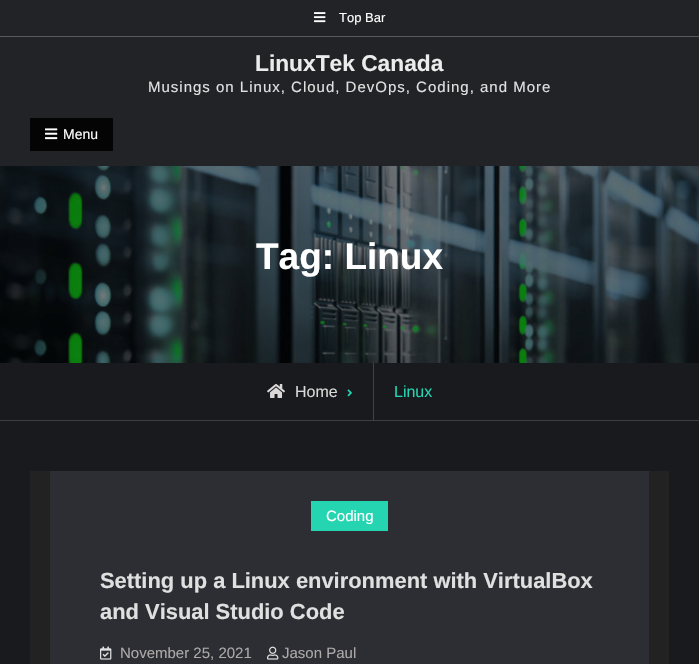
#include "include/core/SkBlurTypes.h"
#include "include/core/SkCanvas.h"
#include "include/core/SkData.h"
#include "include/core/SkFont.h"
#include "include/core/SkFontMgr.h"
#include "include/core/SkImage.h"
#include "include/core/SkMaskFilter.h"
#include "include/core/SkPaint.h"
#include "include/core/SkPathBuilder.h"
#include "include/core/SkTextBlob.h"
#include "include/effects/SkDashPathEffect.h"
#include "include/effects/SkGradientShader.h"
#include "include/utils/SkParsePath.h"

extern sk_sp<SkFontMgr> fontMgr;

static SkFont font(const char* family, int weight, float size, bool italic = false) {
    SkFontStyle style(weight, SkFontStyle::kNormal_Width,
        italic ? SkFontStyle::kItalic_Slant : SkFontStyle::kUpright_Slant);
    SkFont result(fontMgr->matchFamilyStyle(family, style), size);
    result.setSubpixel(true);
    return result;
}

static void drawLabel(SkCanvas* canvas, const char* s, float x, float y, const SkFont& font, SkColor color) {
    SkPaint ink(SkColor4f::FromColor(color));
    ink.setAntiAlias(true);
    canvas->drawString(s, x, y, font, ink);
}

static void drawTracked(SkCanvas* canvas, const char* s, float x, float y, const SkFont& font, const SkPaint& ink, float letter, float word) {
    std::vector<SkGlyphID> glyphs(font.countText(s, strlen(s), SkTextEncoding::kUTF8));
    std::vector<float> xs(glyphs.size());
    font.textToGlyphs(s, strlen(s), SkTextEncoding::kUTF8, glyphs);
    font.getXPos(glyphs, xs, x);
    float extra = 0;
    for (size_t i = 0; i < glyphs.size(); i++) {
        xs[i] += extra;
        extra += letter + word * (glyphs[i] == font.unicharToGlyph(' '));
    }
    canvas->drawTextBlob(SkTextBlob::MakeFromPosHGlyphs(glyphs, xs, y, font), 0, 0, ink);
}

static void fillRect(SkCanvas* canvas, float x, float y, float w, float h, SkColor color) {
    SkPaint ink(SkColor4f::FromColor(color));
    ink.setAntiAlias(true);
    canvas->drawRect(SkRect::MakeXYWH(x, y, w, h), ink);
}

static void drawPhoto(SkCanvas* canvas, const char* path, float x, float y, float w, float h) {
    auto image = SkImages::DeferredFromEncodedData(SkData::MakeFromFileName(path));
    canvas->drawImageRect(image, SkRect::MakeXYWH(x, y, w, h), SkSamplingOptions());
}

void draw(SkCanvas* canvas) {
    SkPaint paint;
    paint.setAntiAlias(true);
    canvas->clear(0xFF191A1E);
    fillRect(canvas, 0, 0, 699, 166, 0xFF212327);
    fillRect(canvas, 0, 36, 699, 1, 0xFF58595C);
    drawPhoto(canvas, "assets/img1.png", 314, 12, 12, 11);
    SkFont font1 = font("Liberation Sans", 400, 13);
    drawLabel(canvas, "Top Bar", 339, 22, font1, 0xFFFFFFFF);
    SkFont font2 = font("Liberation Sans", 700, 22.75f);
    drawLabel(canvas, "LinuxTek Canada", 255, 71, font2, 0xFFECECEC);
    SkFont font3 = font("Liberation Sans", 400, 15);
    paint.setColor(0xFFE0E0E0);
    drawTracked(canvas, "Musings on Linux, Cloud, DevOps, Coding, and More", 148, 92, font3, paint, 1, 0);
    fillRect(canvas, 30, 118, 83, 33, 0xFF040404);
    drawPhoto(canvas, "assets/img2.png", 45, 128, 13, 12);
    SkFont font4 = font("Liberation Sans", 400, 14);
    drawLabel(canvas, "Menu", 63, 139, font4, 0xFFFFFFFF);
    drawPhoto(canvas, "assets/img3.png", 0, 166, 699, 197);
    SkFont font5 = font("Liberation Sans", 700, 37);
    drawLabel(canvas, "Tag: Linux", 256, 269, font5, 0xFFFFFFFF);
    fillRect(canvas, 0, 420, 699, 1, 0xFF3E3F42);
    fillRect(canvas, 373, 363, 1, 57, 0xFF424346);
    drawPhoto(canvas, "assets/img4.png", 267, 384, 18, 14);
    SkFont font6 = font("Liberation Sans", 400, 16);
    drawLabel(canvas, "Home", 295, 397, font6, 0xFFDAD8D8);
    drawPhoto(canvas, "assets/img5.png", 347, 389, 5, 8);
    drawLabel(canvas, "Linux", 394, 397, font6, 0xFF25D5B2);
    fillRect(canvas, 30, 471, 639, 193, 0xFF222222);
    fillRect(canvas, 50, 471, 599, 193, 0xFF2C2E33);
    fillRect(canvas, 311, 501, 77, 30, 0xFF25D5B2);
    drawLabel(canvas, "Coding", 326, 521, font3, 0xFFFFFFFF);
    SkFont font7 = font("Liberation Sans", 700, 21.9f);
    drawLabel(canvas, "Setting up a Linux environment with VirtualBox", 100, 588, font7, 0xFFE0E0E0);
    drawLabel(canvas, "and Visual Studio Code", 100, 619, font7, 0xFFE0E0E0);
    drawPhoto(canvas, "assets/img6.png", 100, 646, 12, 14);
    drawLabel(canvas, "November 25, 2021", 120, 658, font3, 0xFFADA9A9);
    drawPhoto(canvas, "assets/img7.png", 267, 646, 12, 14);
    drawLabel(canvas, "Jason Paul", 282, 658, font3, 0xFFADA9A9);
}
